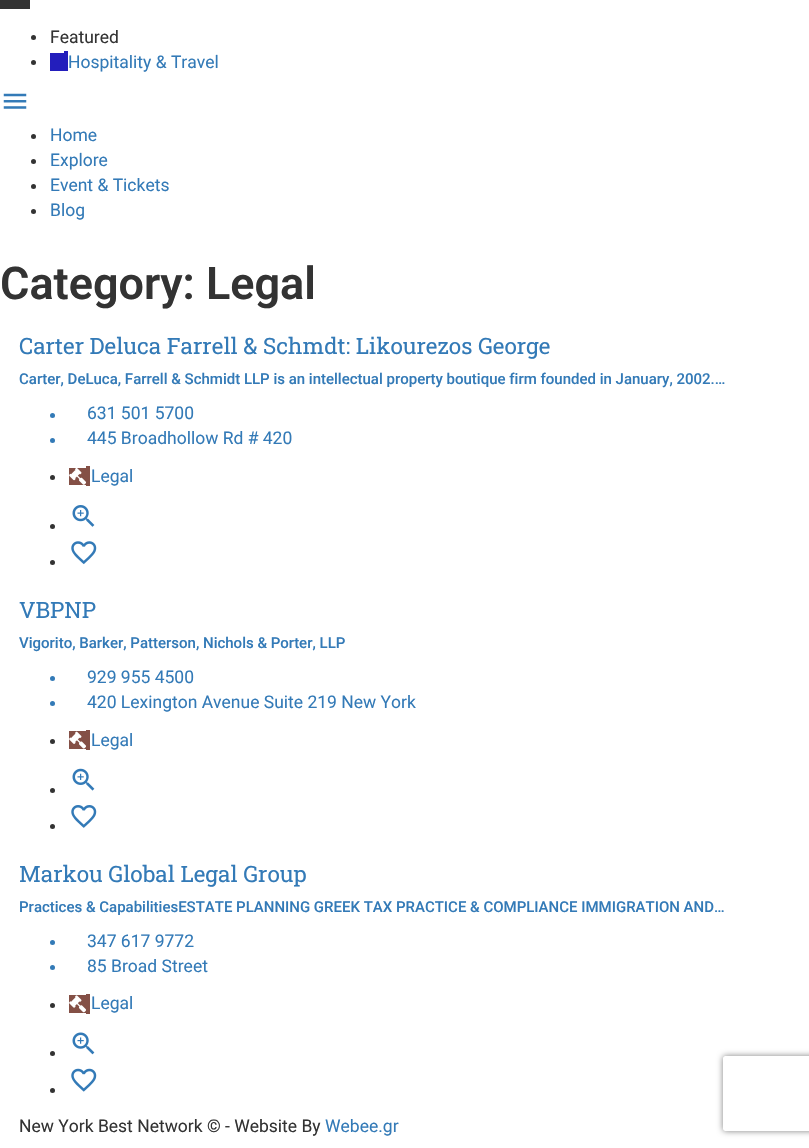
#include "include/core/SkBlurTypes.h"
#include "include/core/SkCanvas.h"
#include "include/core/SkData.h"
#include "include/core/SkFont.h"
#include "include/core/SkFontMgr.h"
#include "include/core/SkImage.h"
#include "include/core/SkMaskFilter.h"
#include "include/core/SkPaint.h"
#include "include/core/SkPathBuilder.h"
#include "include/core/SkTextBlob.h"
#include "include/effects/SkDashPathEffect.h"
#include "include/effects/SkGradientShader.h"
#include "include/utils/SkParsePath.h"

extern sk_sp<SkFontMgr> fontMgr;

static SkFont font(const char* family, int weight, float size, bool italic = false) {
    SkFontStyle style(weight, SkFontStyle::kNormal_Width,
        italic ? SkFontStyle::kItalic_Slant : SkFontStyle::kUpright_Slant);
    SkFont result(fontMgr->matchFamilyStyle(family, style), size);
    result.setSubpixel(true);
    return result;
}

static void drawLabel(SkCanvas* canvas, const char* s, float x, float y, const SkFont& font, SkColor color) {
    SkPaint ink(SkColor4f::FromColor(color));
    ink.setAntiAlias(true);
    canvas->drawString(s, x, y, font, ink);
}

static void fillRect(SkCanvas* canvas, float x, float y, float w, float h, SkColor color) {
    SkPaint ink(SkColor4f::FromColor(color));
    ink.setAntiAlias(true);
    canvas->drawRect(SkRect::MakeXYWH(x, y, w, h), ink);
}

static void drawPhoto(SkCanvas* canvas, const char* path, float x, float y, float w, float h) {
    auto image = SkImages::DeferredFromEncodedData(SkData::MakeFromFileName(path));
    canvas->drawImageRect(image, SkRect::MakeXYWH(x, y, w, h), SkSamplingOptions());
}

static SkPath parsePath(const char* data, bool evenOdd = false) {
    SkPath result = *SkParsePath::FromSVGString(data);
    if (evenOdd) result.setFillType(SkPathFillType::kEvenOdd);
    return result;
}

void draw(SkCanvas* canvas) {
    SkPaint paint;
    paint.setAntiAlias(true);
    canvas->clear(0xFFFFFFFF);
    fillRect(canvas, 0, 0, 30, 9, 0xFF333333);
    paint.setColor(0xFF333333);
    canvas->drawCircle(33.5f, 37.5f, 2.5f, paint);
    SkFont font1 = font("Roboto", 400, 17.5f);
    drawLabel(canvas, "Featured", 50, 43, font1, 0xFF333333);
    canvas->drawCircle(33.5f, 62.5f, 2.5f, paint);
    drawLabel(canvas, "Hospitality & Travel", 68, 68, font1, 0xFF337AB7);
    fillRect(canvas, 50, 53, 14, 18, 0xFF231EBC);
    fillRect(canvas, 64, 51, 4, 20, 0xFF231EBC);
    drawPhoto(canvas, "assets/img1.png", 3, 93, 24, 16);
    canvas->drawCircle(33.5f, 136.5f, 2.5f, paint);
    drawLabel(canvas, "Home", 50, 141, font1, 0xFF337AB7);
    canvas->drawCircle(33.5f, 161.5f, 2.5f, paint);
    drawLabel(canvas, "Explore", 50, 166, font1, 0xFF337AB7);
    canvas->drawCircle(33.5f, 186.5f, 2.5f, paint);
    drawLabel(canvas, "Event & Tickets", 50, 191, font1, 0xFF337AB7);
    canvas->drawCircle(33.5f, 211.5f, 2.5f, paint);
    drawLabel(canvas, "Blog", 50, 216, font1, 0xFF337AB7);
    SkFont font2 = font("Roboto", 600, 45);
    drawLabel(canvas, "Category: Legal", 0, 299, font2, 0xFF333333);
    SkFont font3 = font("Roboto Slab", 400, 22.5f);
    drawLabel(canvas, "Carter Deluca Farrell & Schmdt: Likourezos George", 19, 354, font3, 0xFF337AB7);
    SkFont font4 = font("Roboto", 500, 15);
    drawLabel(canvas, "Carter, DeLuca, Farrell & Schmidt LLP is an intellectual property boutique firm founded in January, 2002.…", 19, 384, font4, 0xFF337AB7);
    paint.setColor(0xFF337AB7);
    canvas->drawCircle(52.5f, 415.5f, 2.5f, paint);
    drawLabel(canvas, "631 501 5700", 87, 419, font1, 0xFF337AB7);
    canvas->drawCircle(52.5f, 440.5f, 2.5f, paint);
    drawLabel(canvas, "445 Broadhollow Rd # 420", 87, 444, font1, 0xFF337AB7);
    paint.setColor(0xFF333333);
    canvas->drawCircle(52.5f, 477.5f, 2.5f, paint);
    fillRect(canvas, 69, 468, 17, 17, 0xFF845046);
    fillRect(canvas, 86, 466, 4, 20, 0xFF845046);
    drawPhoto(canvas, "assets/img2.png", 69, 468, 17, 17);
    drawLabel(canvas, "Legal", 91, 482, font1, 0xFF337AB7);
    canvas->drawCircle(52.5f, 526.5f, 2.5f, paint);
    drawPhoto(canvas, "assets/img3.png", 72, 505, 23, 22);
    canvas->drawCircle(52.5f, 562.5f, 2.5f, paint);
    drawPhoto(canvas, "assets/img4.png", 71, 541, 26, 24);
    drawLabel(canvas, "VBPNP", 19, 618, font3, 0xFF337AB7);
    drawLabel(canvas, "Vigorito, Barker, Patterson, Nichols & Porter, LLP", 19, 648, font4, 0xFF337AB7);
    paint.setColor(0xFF337AB7);
    canvas->drawCircle(52.5f, 678.5f, 2.5f, paint);
    drawLabel(canvas, "929 955 4500", 87, 683, font1, 0xFF337AB7);
    canvas->drawCircle(52.5f, 703.5f, 2.5f, paint);
    drawLabel(canvas, "420 Lexington Avenue Suite 219 New York", 87, 708, font1, 0xFF337AB7);
    paint.setColor(0xFF333333);
    canvas->drawCircle(52.5f, 741.5f, 2.5f, paint);
    fillRect(canvas, 69, 731, 17, 18, 0xFF845046);
    fillRect(canvas, 86, 730, 4, 20, 0xFF845046);
    drawPhoto(canvas, "assets/img5.png", 69, 731, 17, 18);
    drawLabel(canvas, "Legal", 91, 746, font1, 0xFF337AB7);
    canvas->drawCircle(52.5f, 790.5f, 2.5f, paint);
    drawPhoto(canvas, "assets/img6.png", 72, 768, 23, 23);
    canvas->drawCircle(52.5f, 826.5f, 2.5f, paint);
    drawPhoto(canvas, "assets/img7.png", 71, 805, 26, 23);
    drawLabel(canvas, "Markou Global Legal Group", 19, 882, font3, 0xFF337AB7);
    drawLabel(canvas, "Practices & CapabilitiesESTATE PLANNING GREEK TAX PRACTICE & COMPLIANCE IMMIGRATION AND…", 19, 912, font4, 0xFF337AB7);
    paint.setColor(0xFF337AB7);
    canvas->drawCircle(52.5f, 942.5f, 2.5f, paint);
    drawLabel(canvas, "347 617 9772", 87, 947, font1, 0xFF337AB7);
    canvas->drawCircle(52.5f, 967.5f, 2.5f, paint);
    drawLabel(canvas, "85 Broad Street", 87, 972, font1, 0xFF337AB7);
    paint.setColor(0xFF333333);
    canvas->drawCircle(52.5f, 1005.5f, 2.5f, paint);
    fillRect(canvas, 69, 995, 17, 18, 0xFF845046);
    fillRect(canvas, 86, 994, 4, 20, 0xFF845046);
    drawPhoto(canvas, "assets/img8.png", 69, 995, 17, 18);
    drawLabel(canvas, "Legal", 91, 1009, font1, 0xFF337AB7);
    canvas->drawCircle(52.5f, 1053.5f, 2.5f, paint);
    drawPhoto(canvas, "assets/img9.png", 72, 1032, 23, 23);
    canvas->drawCircle(52.5f, 1090.5f, 2.5f, paint);
    drawPhoto(canvas, "assets/img10.png", 71, 1068, 26, 24);
    drawLabel(canvas, "New York Best Network © - Website By", 19, 1132, font1, 0xFF333333);
    drawLabel(canvas, "Webee.gr", 325, 1132, font1, 0xFF337AB7);
    canvas->save();
    canvas->clipPath(parsePath("M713 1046H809V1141H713ZM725.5 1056H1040.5C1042 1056 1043 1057 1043 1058.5V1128.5C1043 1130 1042 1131 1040.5 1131H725.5C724 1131 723 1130 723 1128.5V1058.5C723 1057 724 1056 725.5 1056Z", true), true);
    paint.setColor(0xFF808080);
    paint.setMaskFilter(SkMaskFilter::MakeBlur(kNormal_SkBlurStyle, 3));
    canvas->drawRoundRect(SkRect::MakeXYWH(723, 1056, 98, 75), 2.5f, 2.5f, paint);
    paint.setMaskFilter(nullptr);
    canvas->restore();
}
